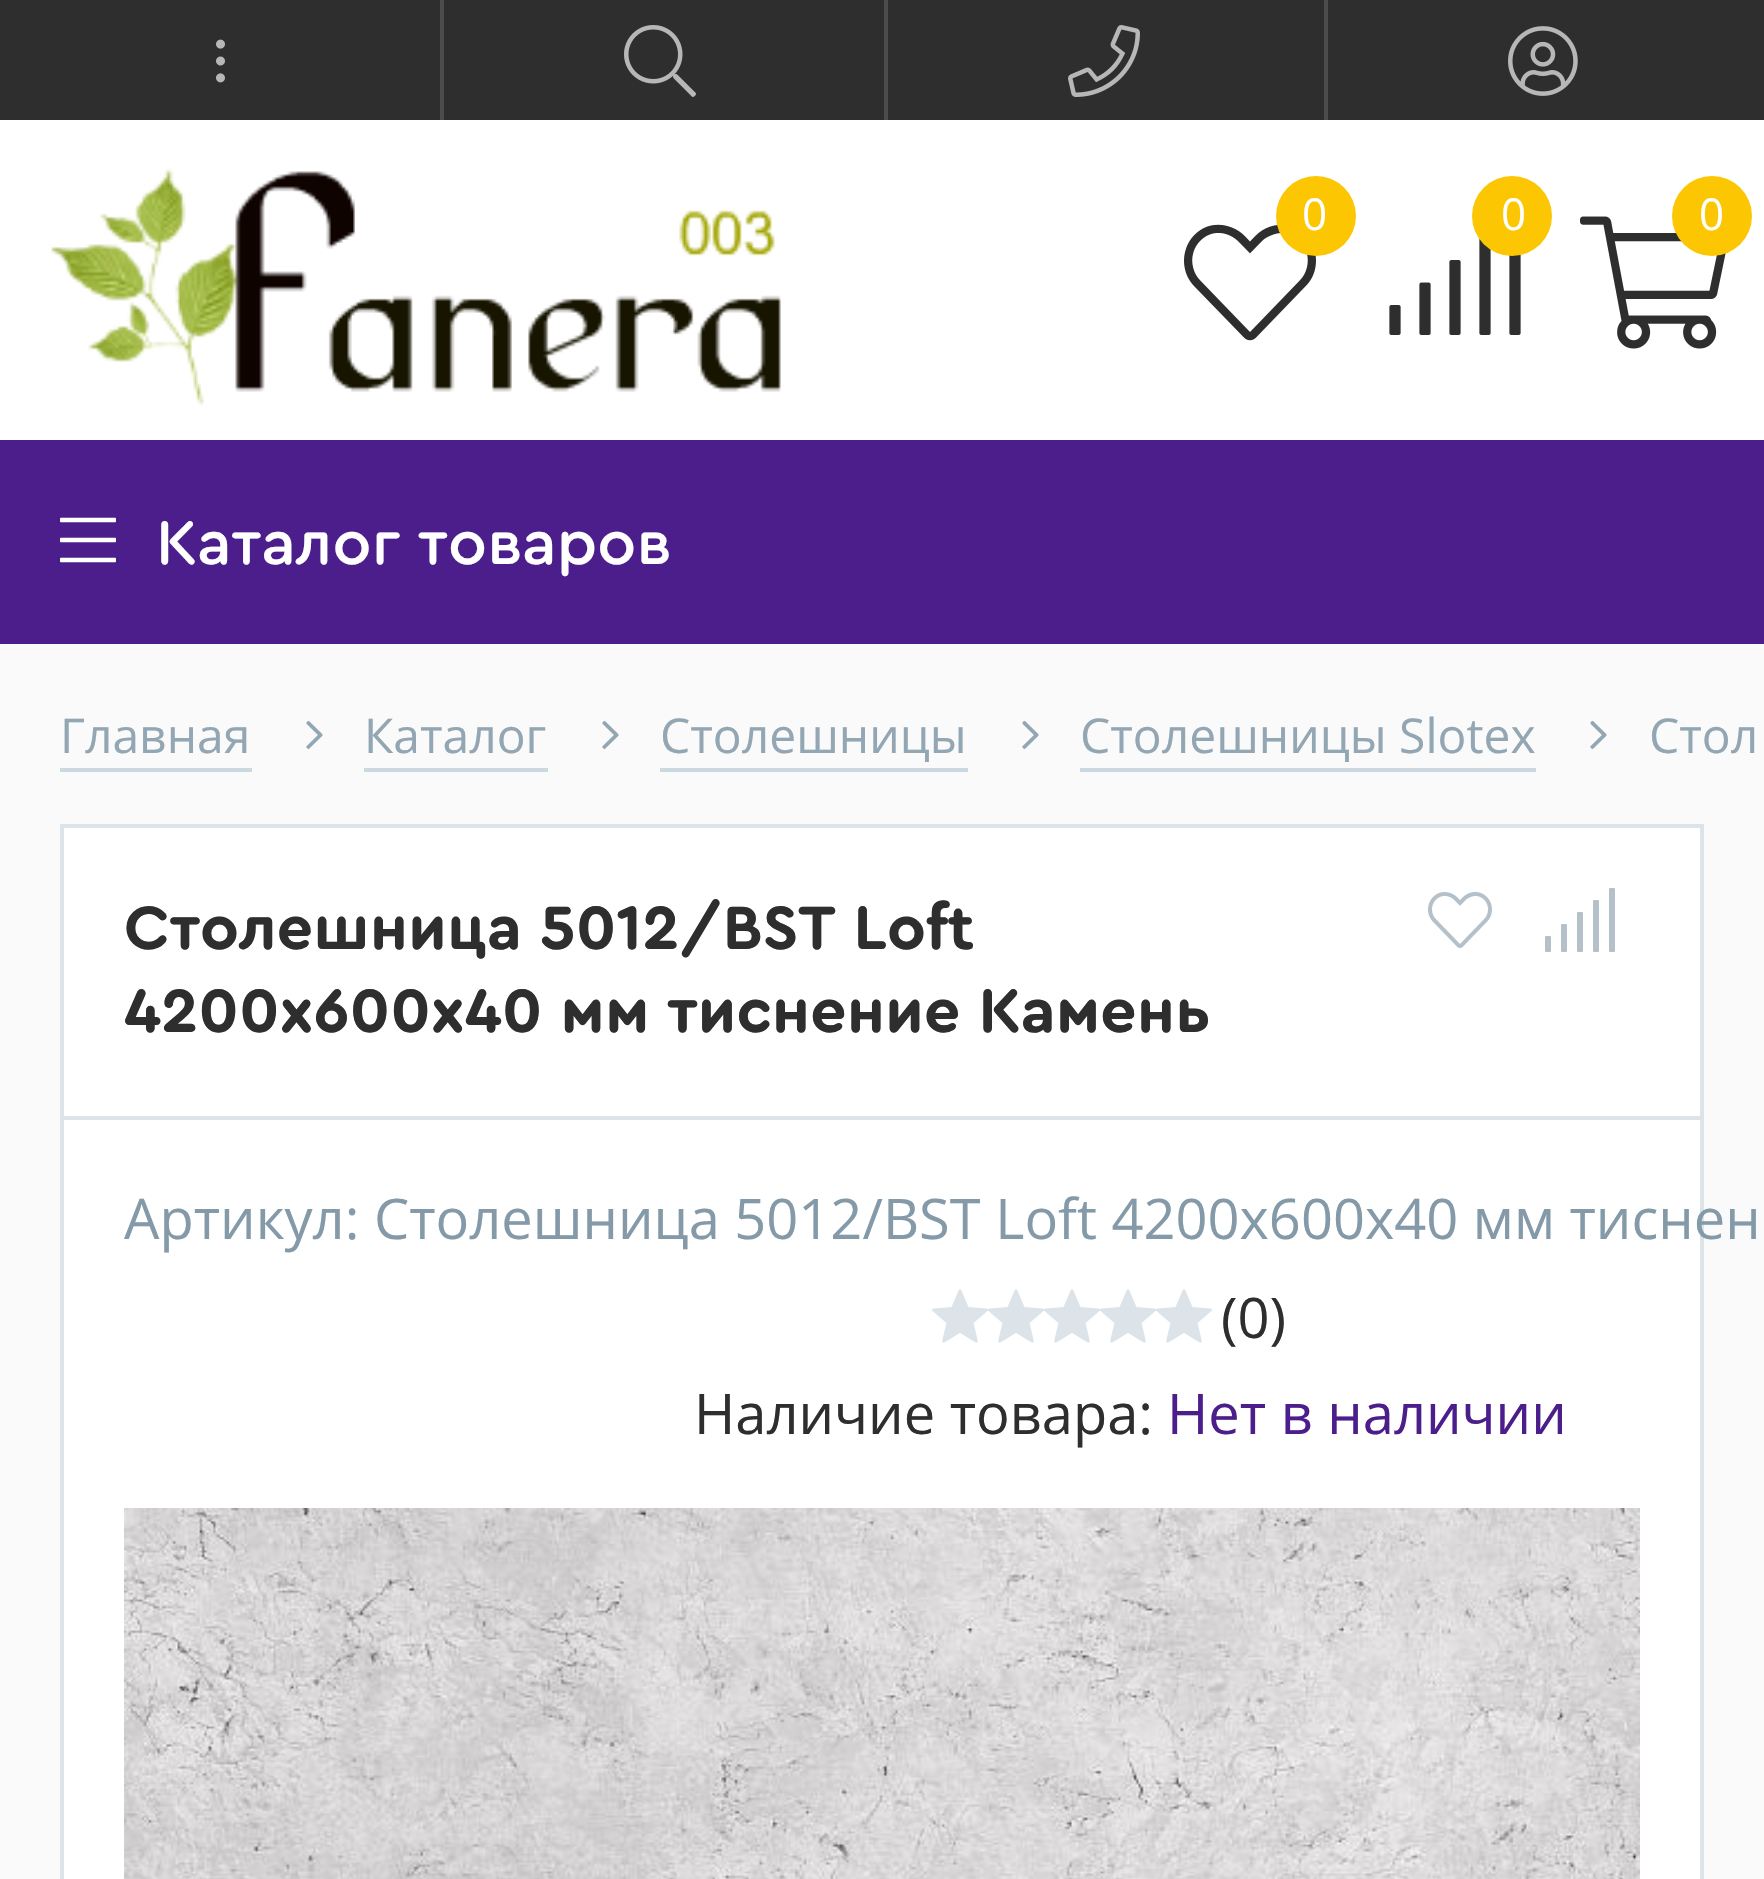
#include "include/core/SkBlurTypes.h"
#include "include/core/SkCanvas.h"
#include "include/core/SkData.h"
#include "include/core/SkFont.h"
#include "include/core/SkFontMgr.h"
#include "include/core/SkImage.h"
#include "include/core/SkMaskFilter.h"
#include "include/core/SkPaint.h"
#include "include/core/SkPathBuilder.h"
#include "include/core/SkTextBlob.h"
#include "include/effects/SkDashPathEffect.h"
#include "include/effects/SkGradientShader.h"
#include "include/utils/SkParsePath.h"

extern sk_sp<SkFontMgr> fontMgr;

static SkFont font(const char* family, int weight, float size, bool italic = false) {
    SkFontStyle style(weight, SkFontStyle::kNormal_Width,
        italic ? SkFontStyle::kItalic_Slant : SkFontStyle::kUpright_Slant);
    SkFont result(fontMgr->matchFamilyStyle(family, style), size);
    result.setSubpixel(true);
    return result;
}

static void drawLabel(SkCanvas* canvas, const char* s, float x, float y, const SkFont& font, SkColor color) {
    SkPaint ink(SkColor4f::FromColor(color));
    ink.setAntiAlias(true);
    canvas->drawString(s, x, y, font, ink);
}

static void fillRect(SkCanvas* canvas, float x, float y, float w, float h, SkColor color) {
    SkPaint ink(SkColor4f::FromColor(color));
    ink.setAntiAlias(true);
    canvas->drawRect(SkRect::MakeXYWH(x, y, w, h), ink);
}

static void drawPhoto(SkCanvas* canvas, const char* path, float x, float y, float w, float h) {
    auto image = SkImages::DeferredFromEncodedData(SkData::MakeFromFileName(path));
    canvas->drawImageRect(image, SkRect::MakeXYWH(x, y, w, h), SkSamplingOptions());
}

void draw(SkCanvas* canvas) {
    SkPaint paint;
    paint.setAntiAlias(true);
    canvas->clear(0xFFFAFAFA);
    fillRect(canvas, 0, 0, 1764, 120, 0xFF2E2E2E);
    drawPhoto(canvas, "assets/img1.png", 216, 39, 9, 44);
    fillRect(canvas, 440, 0, 4, 120, 0xFF4C4C4C);
    drawPhoto(canvas, "assets/img2.png", 624, 25, 72, 72);
    fillRect(canvas, 884, 0, 4, 120, 0xFF4C4C4C);
    drawPhoto(canvas, "assets/img3.png", 1068, 25, 72, 72);
    fillRect(canvas, 1324, 0, 4, 120, 0xFF4C4C4C);
    drawPhoto(canvas, "assets/img4.png", 1508, 26, 70, 70);
    fillRect(canvas, 0, 120, 1764, 320, 0xFFFFFFFF);
    drawPhoto(canvas, "assets/img5.png", 51, 168, 730, 239);
    drawPhoto(canvas, "assets/img6.png", 1184, 224, 132, 117);
    paint.setColor(0xFFFCC602);
    canvas->drawCircle(1316, 216, 40, paint);
    SkFont font1 = font("Open Sans", 400, 44);
    drawLabel(canvas, "0", 1302, 230, font1, 0xFFFFFFFF);
    drawPhoto(canvas, "assets/img7.png", 1389, 238, 132, 97);
    canvas->drawCircle(1512, 216, 40, paint);
    drawLabel(canvas, "0", 1501, 230, font1, 0xFFFFFFFF);
    drawPhoto(canvas, "assets/img8.png", 1580, 216, 146, 133);
    canvas->drawCircle(1712, 216, 40, paint);
    drawLabel(canvas, "0", 1699, 230, font1, 0xFFFFFFFF);
    fillRect(canvas, 0, 440, 1764, 204, 0xFF4C1E8B);
    drawPhoto(canvas, "assets/img9.png", 60, 517, 56, 46);
    SkFont font2 = font("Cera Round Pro", 500, 64);
    drawLabel(canvas, "Каталог товаров", 156, 564, font2, 0xFFFFFFFF);
    SkFont font3 = font("Open Sans", 400, 48);
    drawLabel(canvas, "Главная", 60, 753, font3, 0xFF93A6B3);
    fillRect(canvas, 60, 768, 192, 4, 0xFFCCD8DF);
    drawPhoto(canvas, "assets/img10.png", 306, 721, 17, 28);
    drawLabel(canvas, "Каталог", 364, 753, font3, 0xFF93A6B3);
    fillRect(canvas, 364, 768, 184, 4, 0xFFCCD8DF);
    drawPhoto(canvas, "assets/img10.png", 602, 721, 17, 28);
    drawLabel(canvas, "Столешницы", 660, 753, font3, 0xFF93A6B3);
    fillRect(canvas, 660, 768, 308, 4, 0xFFCCD8DF);
    drawPhoto(canvas, "assets/img10.png", 1022, 721, 17, 28);
    drawLabel(canvas, "Столешницы Slotex", 1080, 753, font3, 0xFF93A6B3);
    fillRect(canvas, 1080, 768, 456, 4, 0xFFCCD8DF);
    drawPhoto(canvas, "assets/img10.png", 1590, 721, 17, 28);
    drawLabel(canvas, "Стол", 1649, 753, font3, 0xFF93A6B3);
    paint.setColor(0xFFFFFFFF);
    canvas->drawRect(SkRect::MakeXYWH(62, 826, 1640, 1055), paint);
    paint.setStroke(true);
    paint.setStrokeWidth(4);
    paint.setColor(0xFFDCE4E9);
    canvas->drawRect(SkRect::MakeXYWH(62, 826, 1640, 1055), paint);
    SkFont font4 = font("Cera Round Pro", 700, 64);
    drawLabel(canvas, "Столешница 5012/BST Loft", 124, 949, font4, 0xFF2E2E2E);
    drawLabel(canvas, "4200х600х40 мм тиснение Камень", 124, 1032, font4, 0xFF2E2E2E);
    drawPhoto(canvas, "assets/img11.png", 1428, 892, 64, 56);
    drawPhoto(canvas, "assets/img12.png", 1545, 888, 70, 64);
    fillRect(canvas, 64, 1116, 1636, 4, 0xFFDCE4E9);
    SkFont font5 = font("Open Sans", 400, 56);
    drawLabel(canvas, "Артикул: Столешница 5012/BST Loft 4200х600х40 мм тиснен", 124, 1239, font5, 0xFF849AA8);
    drawPhoto(canvas, "assets/img13.png", 932, 1289, 280, 54);
    drawLabel(canvas, "(0)", 1221, 1338, font5, 0xFF2E2E2E);
    drawLabel(canvas, "Наличие товара:", 694, 1434, font5, 0xFF2E2E2E);
    drawLabel(canvas, "Нет в наличии", 1167, 1434, font5, 0xFF4C1E8B);
    drawPhoto(canvas, "assets/img14.png", 124, 1508, 1516, 371);
}
